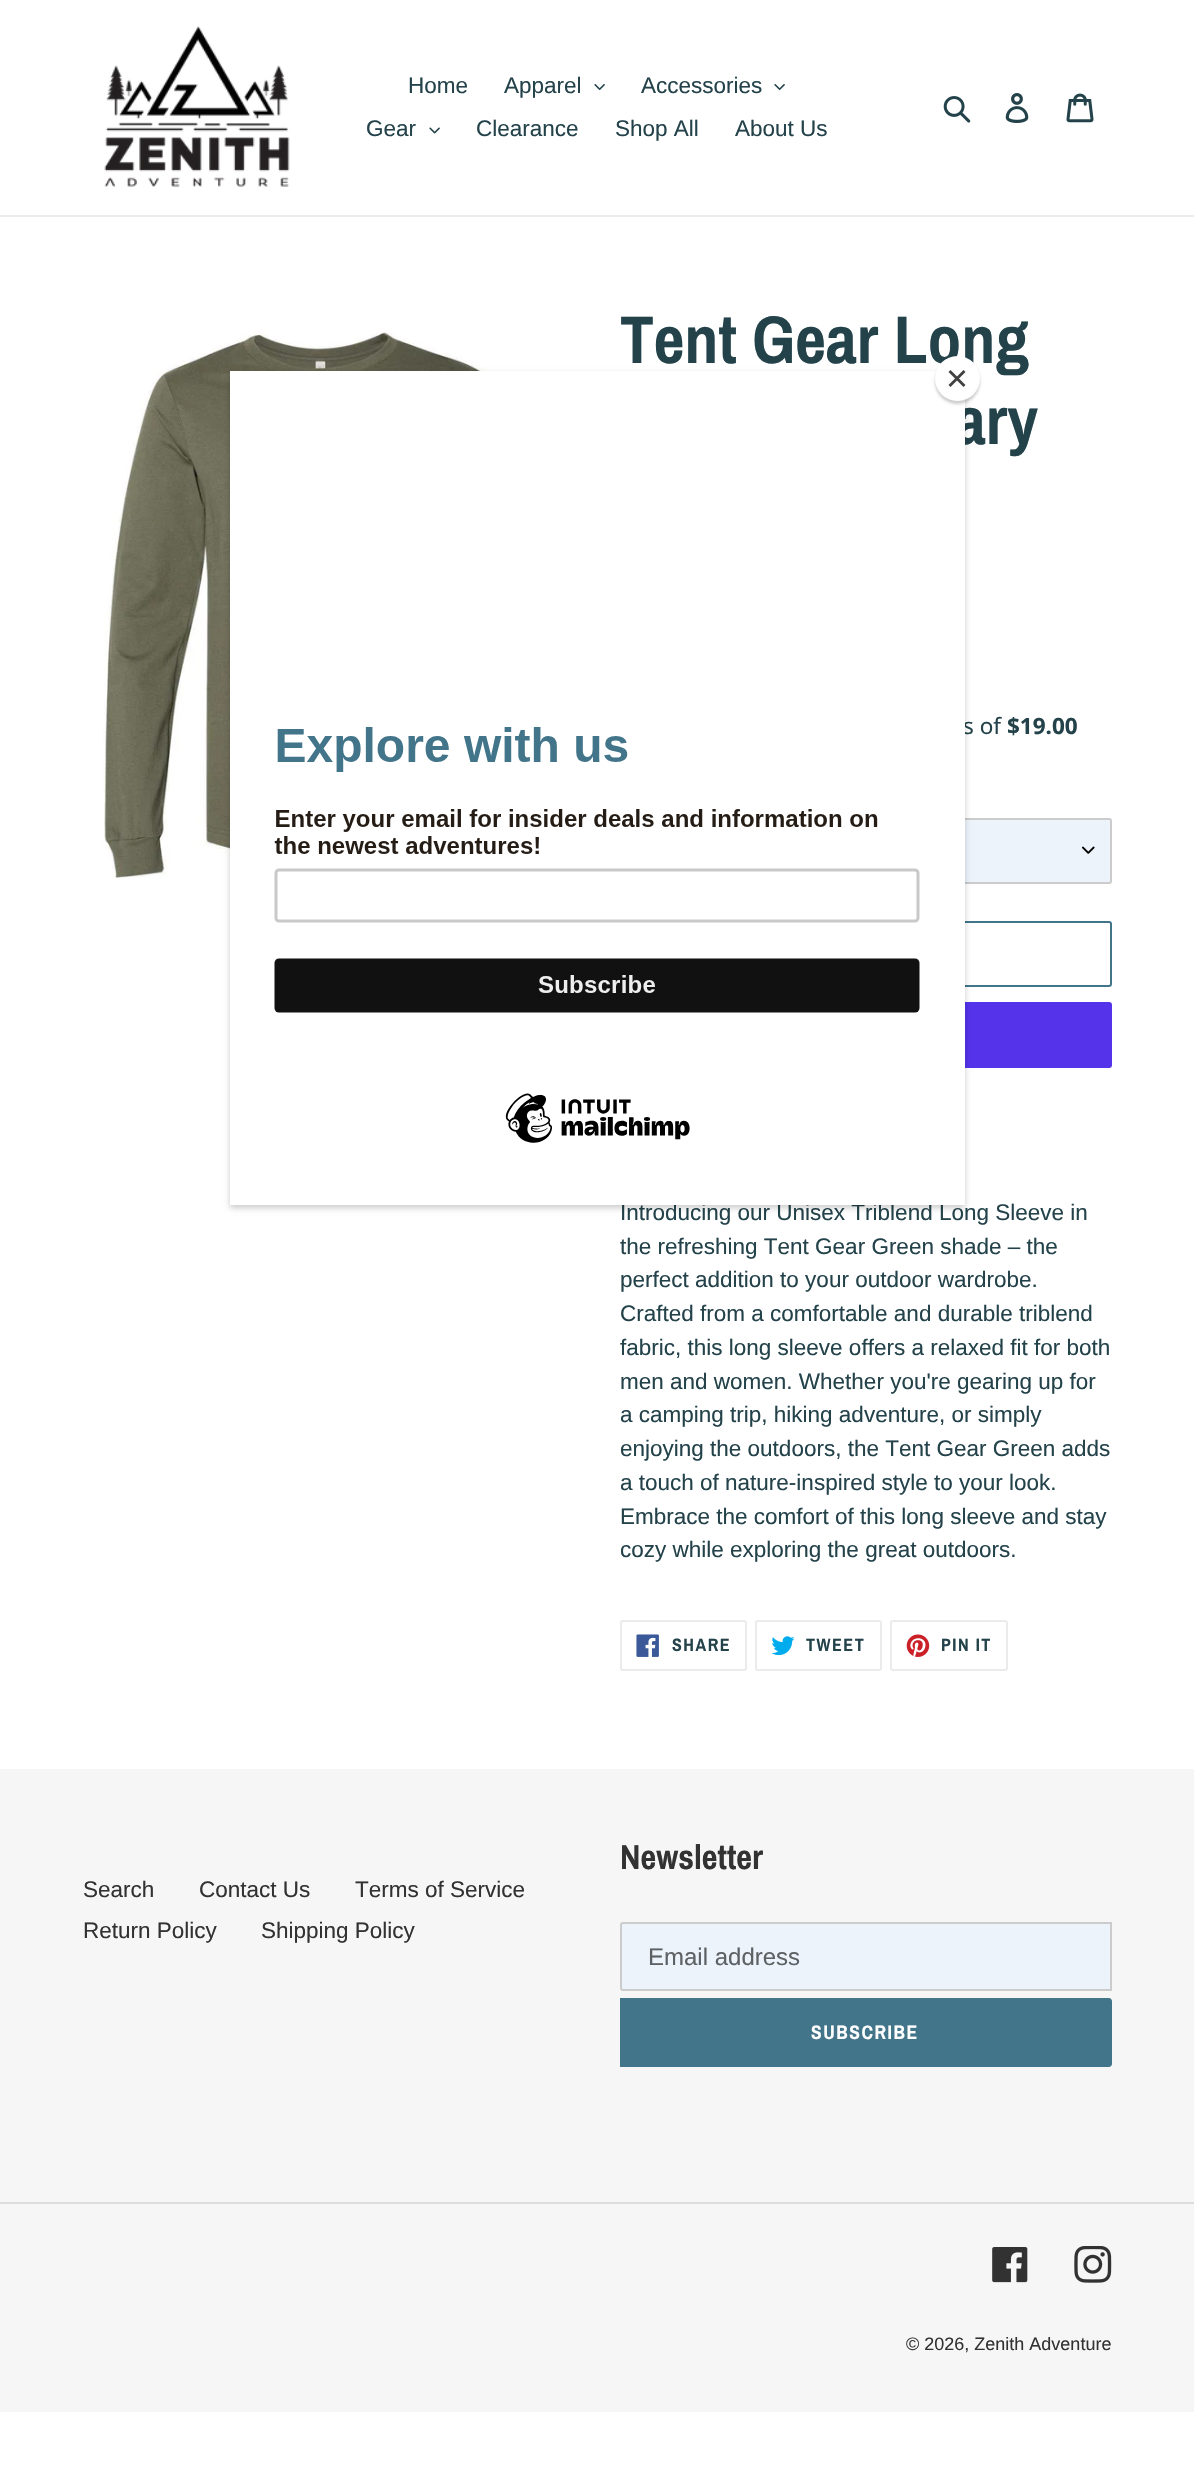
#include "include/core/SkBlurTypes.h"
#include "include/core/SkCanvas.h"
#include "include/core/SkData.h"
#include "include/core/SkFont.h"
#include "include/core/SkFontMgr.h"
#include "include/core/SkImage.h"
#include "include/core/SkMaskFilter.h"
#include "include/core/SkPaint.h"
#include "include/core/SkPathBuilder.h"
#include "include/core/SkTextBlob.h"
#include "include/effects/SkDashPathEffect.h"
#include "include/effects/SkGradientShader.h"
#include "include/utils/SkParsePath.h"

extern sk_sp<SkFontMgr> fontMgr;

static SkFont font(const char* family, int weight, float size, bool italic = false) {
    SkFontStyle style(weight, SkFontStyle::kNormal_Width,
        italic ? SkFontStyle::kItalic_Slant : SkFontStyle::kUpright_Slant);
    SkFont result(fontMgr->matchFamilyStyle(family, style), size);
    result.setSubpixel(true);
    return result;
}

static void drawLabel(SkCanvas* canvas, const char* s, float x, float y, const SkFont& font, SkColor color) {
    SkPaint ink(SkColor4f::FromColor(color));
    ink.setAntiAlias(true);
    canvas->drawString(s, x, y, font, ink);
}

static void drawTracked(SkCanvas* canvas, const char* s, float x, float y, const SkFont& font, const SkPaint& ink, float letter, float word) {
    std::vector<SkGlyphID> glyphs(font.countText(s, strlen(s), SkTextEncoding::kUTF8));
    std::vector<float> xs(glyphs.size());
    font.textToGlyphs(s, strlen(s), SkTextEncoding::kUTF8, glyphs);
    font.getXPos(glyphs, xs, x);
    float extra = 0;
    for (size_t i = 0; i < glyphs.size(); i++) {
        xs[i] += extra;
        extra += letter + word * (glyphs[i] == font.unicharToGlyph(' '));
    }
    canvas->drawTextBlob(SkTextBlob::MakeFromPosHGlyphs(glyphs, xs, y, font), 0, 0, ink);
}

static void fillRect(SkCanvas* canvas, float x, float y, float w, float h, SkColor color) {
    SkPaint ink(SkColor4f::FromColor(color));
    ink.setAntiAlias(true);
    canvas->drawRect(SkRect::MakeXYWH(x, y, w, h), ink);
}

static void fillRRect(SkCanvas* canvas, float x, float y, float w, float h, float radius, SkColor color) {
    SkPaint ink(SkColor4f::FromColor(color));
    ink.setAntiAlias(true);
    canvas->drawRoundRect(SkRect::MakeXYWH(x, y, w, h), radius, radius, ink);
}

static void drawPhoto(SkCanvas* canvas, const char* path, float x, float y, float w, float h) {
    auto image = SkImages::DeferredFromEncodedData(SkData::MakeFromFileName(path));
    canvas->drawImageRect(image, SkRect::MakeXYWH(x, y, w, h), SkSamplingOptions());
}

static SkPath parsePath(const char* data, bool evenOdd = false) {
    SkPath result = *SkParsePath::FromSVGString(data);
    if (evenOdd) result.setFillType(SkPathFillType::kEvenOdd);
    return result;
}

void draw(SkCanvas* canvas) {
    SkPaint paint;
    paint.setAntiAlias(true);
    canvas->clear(0xFFFFFFFF);
    fillRect(canvas, 0, 215, 1194, 2, 0xFFEBEBEB);
    drawPhoto(canvas, "assets/img1.png", 104, 26, 186, 161);
    SkFont font1 = font("Liberation Sans", 400, 22.5f);
    drawLabel(canvas, "Home", 408, 93, font1, 0xFF23424A);
    drawLabel(canvas, "Apparel", 504, 93, font1, 0xFF23424A);
    drawPhoto(canvas, "assets/img2.png", 594, 84, 11, 6);
    drawLabel(canvas, "Accessories", 641, 93, font1, 0xFF23424A);
    drawPhoto(canvas, "assets/img2.png", 774, 84, 11, 6);
    drawLabel(canvas, "Gear", 366, 136, font1, 0xFF23424A);
    drawPhoto(canvas, "assets/img3.png", 429, 127, 11, 7);
    drawLabel(canvas, "Clearance", 476, 136, font1, 0xFF23424A);
    drawLabel(canvas, "Shop All", 615, 136, font1, 0xFF23424A);
    drawLabel(canvas, "About Us", 735, 136, font1, 0xFF23424A);
    drawPhoto(canvas, "assets/img4.png", 943, 96, 28, 27);
    drawPhoto(canvas, "assets/img5.png", 1005, 93, 24, 30);
    drawPhoto(canvas, "assets/img6.png", 1066, 93, 28, 30);
    drawPhoto(canvas, "assets/img7.png", 103, 331, 453, 551);
    SkFont font2 = font("Archivo Narrow", 700, 67.5f);
    drawLabel(canvas, "Tent Gear Long", 620, 363, font2, 0xFF23424A);
    drawLabel(canvas, "ary", 955, 444, font2, 0xFF23424A);
    SkFont font3 = font("Noto Sans", 400, 22.5f);
    drawLabel(canvas, "s of", 963, 734, font3, 0xFF23424A);
    SkFont font4 = font("Noto Sans", 700, 22.5f);
    drawLabel(canvas, "$19.00", 1007, 734, font4, 0xFF23424A);
    fillRRect(canvas, 620, 818, 492, 66, 3, 0xFFECF3FB);
    drawPhoto(canvas, "assets/img8.png", 1082, 846, 13, 8);
    paint.setStroke(true);
    paint.setStrokeWidth(2);
    paint.setColor(0xFFCCCCCC);
    canvas->drawRoundRect(SkRect::MakeXYWH(621, 819, 490, 64), 2, 2, paint);
    paint.setColor(0xFF43758A);
    canvas->drawRoundRect(SkRect::MakeXYWH(621, 922, 490, 64), 2, 2, paint);
    fillRRect(canvas, 620, 1002, 492, 66, 3, 0xFF5433EB);
    drawLabel(canvas, "Introducing our Unisex Triblend Long Sleeve in", 620, 1220, font1, 0xFF23424A);
    drawLabel(canvas, "the refreshing Tent Gear Green shade – the", 620, 1254, font1, 0xFF23424A);
    drawLabel(canvas, "perfect addition to your outdoor wardrobe.", 620, 1287, font1, 0xFF23424A);
    drawLabel(canvas, "Crafted from a comfortable and durable triblend", 620, 1321, font1, 0xFF23424A);
    drawLabel(canvas, "fabric, this long sleeve offers a relaxed fit for both", 620, 1355, font1, 0xFF23424A);
    drawLabel(canvas, "men and women. Whether you're gearing up for", 620, 1389, font1, 0xFF23424A);
    drawLabel(canvas, "a camping trip, hiking adventure, or simply", 620, 1422, font1, 0xFF23424A);
    drawLabel(canvas, "enjoying the outdoors, the Tent Gear Green adds", 620, 1456, font1, 0xFF23424A);
    drawLabel(canvas, "a touch of nature-inspired style to your look.", 620, 1490, font1, 0xFF23424A);
    drawLabel(canvas, "Embrace the comfort of this long sleeve and stay", 620, 1524, font1, 0xFF23424A);
    drawLabel(canvas, "cozy while exploring the great outdoors.", 620, 1557, font1, 0xFF23424A);
    paint.setColor(0xFFEBEBEB);
    canvas->drawRoundRect(SkRect::MakeXYWH(621, 1621, 125, 49), 2, 2, paint);
    drawPhoto(canvas, "assets/img9.png", 636, 1634, 23, 23);
    SkFont font5 = font("Archivo Narrow", 700, 18);
    paint.setStroke(false);
    paint.setColor(0xFF23424A);
    drawTracked(canvas, "SHARE", 672, 1651, font5, paint, 1.5f, 0);
    paint.setStroke(true);
    paint.setColor(0xFFEBEBEB);
    canvas->drawRoundRect(SkRect::MakeXYWH(756, 1621, 125, 49), 2, 2, paint);
    drawPhoto(canvas, "assets/img10.png", 771, 1636, 24, 20);
    paint.setStroke(false);
    paint.setColor(0xFF23424A);
    drawTracked(canvas, "TWEET", 806, 1651, font5, paint, 1.5f, 0);
    paint.setStroke(true);
    paint.setColor(0xFFEBEBEB);
    canvas->drawRoundRect(SkRect::MakeXYWH(891, 1621, 116, 49), 2, 2, paint);
    drawPhoto(canvas, "assets/img11.png", 906, 1634, 24, 23);
    paint.setStroke(false);
    paint.setColor(0xFF23424A);
    drawTracked(canvas, "PIN IT", 941, 1651, font5, paint, 1.5f, 0);
    fillRect(canvas, 0, 1769, 1194, 643, 0xFFF6F6F6);
    drawLabel(canvas, "Search", 83, 1897, font1, 0xFF333232);
    drawLabel(canvas, "Contact Us", 199, 1897, font1, 0xFF333232);
    drawLabel(canvas, "Terms of Service", 355, 1897, font1, 0xFF333232);
    drawLabel(canvas, "Return Policy", 83, 1938, font1, 0xFF333232);
    drawLabel(canvas, "Shipping Policy", 261, 1938, font1, 0xFF333232);
    SkFont font6 = font("Archivo Narrow", 700, 34.5f);
    drawLabel(canvas, "Newsletter", 620, 1869, font6, 0xFF333232);
    paint.setColor(0xFFECF3FB);
    canvas->drawPath(parsePath("M623 1923H1111V1990H623C622 1990 621 1989 621 1988V1925C621 1924 622 1923 623 1923Z"), paint);
    paint.setStroke(true);
    paint.setColor(0xFFCCCCCC);
    canvas->drawPath(parsePath("M623 1923H1111V1990H623C622 1990 621 1989 621 1988V1925C621 1924 622 1923 623 1923Z"), paint);
    SkFont font7 = font("Liberation Sans", 400, 24);
    drawLabel(canvas, "Email address", 648, 1965, font7, 0xFF5E6164);
    paint.setStroke(false);
    paint.setColor(0xFF43758A);
    canvas->drawPath(parsePath("M620 1998H1109C1110.5 1998 1112 1999.5 1112 2001V2064C1112 2065.5 1110.5 2067 1109 2067H620Z"), paint);
    SkFont font8 = font("Archivo Narrow", 700, 19.5f);
    paint.setColor(0xFFFFFFFF);
    drawTracked(canvas, "SUBSCRIBE", 811, 2039, font8, paint, 1.5f, 0);
    fillRect(canvas, 0, 2202, 1194, 2, 0xFFDDDDDD);
    drawPhoto(canvas, "assets/img12.png", 992, 2247, 36, 36);
    drawPhoto(canvas, "assets/img13.png", 1074, 2246, 38, 37);
    SkFont font9 = font("Liberation Sans", 400, 18);
    drawLabel(canvas, "© 2026, Zenith Adventure", 906, 2350, font9, 0xFF333232);
    paint.setColor(0x33000000);
    paint.setMaskFilter(SkMaskFilter::MakeBlur(kNormal_SkBlurStyle, 3));
    canvas->drawRect(SkRect::MakeXYWH(230, 374, 735, 834), paint);
    paint.setMaskFilter(nullptr);
    drawPhoto(canvas, "assets/img14.png", 230, 371, 735, 834);
    paint.setMaskFilter(SkMaskFilter::MakeBlur(kNormal_SkBlurStyle, 1.5f));
    canvas->drawRoundRect(SkRect::MakeXYWH(935, 359, 45, 45), 22.5f, 22.5f, paint);
    paint.setMaskFilter(nullptr);
    paint.setColor(0xFFFFFFFF);
    canvas->drawCircle(957.5f, 378.5f, 22.5f, paint);
    paint.setColor(0xFF414141);
    canvas->drawPath(parsePath("M963.5 370L965.5 372L950.5 387L948.5 385Z"), paint);
    canvas->drawPath(parsePath("M948.5 372L950.5 370L965.5 385L963.5 387Z"), paint);
}
